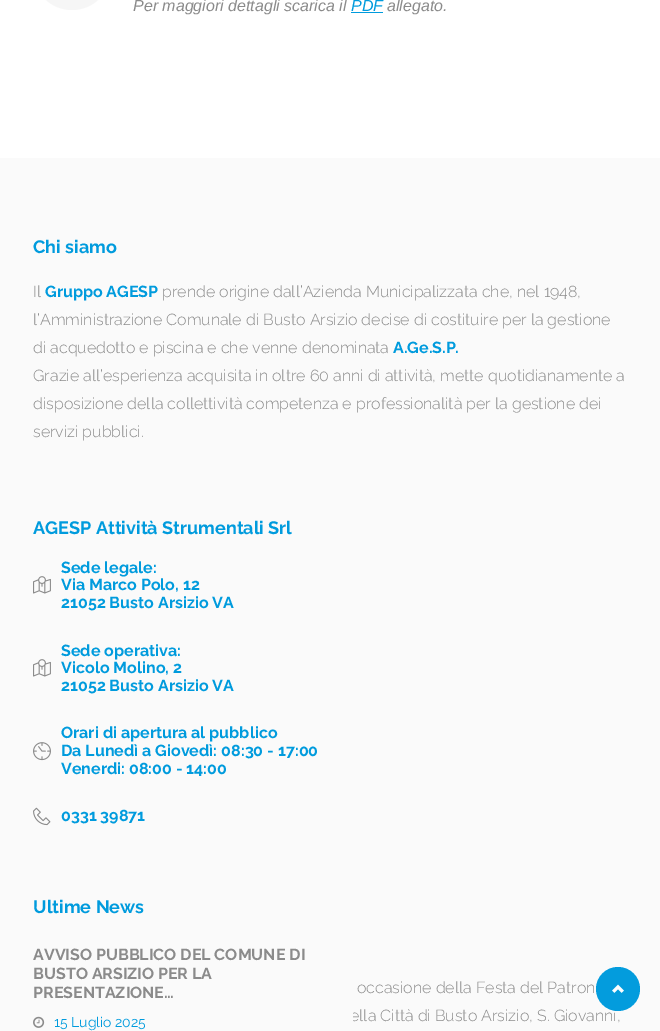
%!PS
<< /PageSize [660 1031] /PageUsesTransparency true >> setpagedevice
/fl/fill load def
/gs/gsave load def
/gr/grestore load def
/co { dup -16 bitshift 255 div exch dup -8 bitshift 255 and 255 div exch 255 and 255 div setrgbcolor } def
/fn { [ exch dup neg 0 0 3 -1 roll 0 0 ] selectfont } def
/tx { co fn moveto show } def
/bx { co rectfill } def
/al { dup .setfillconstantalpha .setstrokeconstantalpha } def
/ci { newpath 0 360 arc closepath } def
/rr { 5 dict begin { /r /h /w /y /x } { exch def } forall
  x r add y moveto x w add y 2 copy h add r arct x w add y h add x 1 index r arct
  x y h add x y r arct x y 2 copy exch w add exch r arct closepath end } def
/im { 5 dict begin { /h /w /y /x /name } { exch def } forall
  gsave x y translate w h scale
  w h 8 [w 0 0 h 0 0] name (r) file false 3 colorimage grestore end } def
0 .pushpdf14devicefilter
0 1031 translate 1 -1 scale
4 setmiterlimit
0 0 660 1031 16#FFFFFF bx
16#F6F6F6 co
33 -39 78 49 39 rr fl
351 12 32 1 16#009BDD bx
0 158 660 873 16#FAFAFA bx
(media/1.raw) 33 576 18 18 im
(media/1.raw) 33 659 18 18 im
(media/2.raw) 33 742 18 19 im
(media/3.raw) 33 807 18 19 im
(media/4.raw) 33 1016 12 12 im
(Per maggiori dettagli scarica il) 133 11 /LiberationSans-Italic 16 16#8B8B8B tx
(PDF) 351 11 /LiberationSans-Italic 16 16#009BDD tx
(allegato.) 387 11 /LiberationSans-Italic 16 16#8B8B8B tx
(Chi siamo) 33 253 /Raleway-Bold 18 16#009BDD tx
(Il) 33 297 /Raleway-Light 16 16#8B8B8B tx
(Gruppo AGESP) 45 297 /Raleway-Bold 16 16#009BDD tx
(prende origine dall’Azienda Municipalizzata che, nel 1948,) 162 297 /Raleway-Light 16 16#8B8B8B tx
(l’Amministrazione Comunale di Busto Arsizio decise di costituire per la gestione) 33 325 /Raleway-Light 16 16#8B8B8B tx
(di acquedotto e piscina e che venne denominata) 33 353 /Raleway-Light 16 16#8B8B8B tx
(A.Ge.S.P.) 393 353 /Raleway-Bold 16 16#009BDD tx
(Grazie all’esperienza acquisita in oltre 60 anni di attività, mette quotidianamente a) 33 381 /Raleway-Light 16 16#8B8B8B tx
(disposizione della collettività competenza e professionalità per la gestione dei) 33 409 /Raleway-Light 16 16#8B8B8B tx
(servizi pubblici.) 33 437 /Raleway-Light 16 16#8B8B8B tx
(AGESP Attività Strumentali Srl) 33 534 /Raleway-Bold 18 16#009BDD tx
(Sede legale:) 61 573 /Raleway-Bold 16 16#009BDD tx
(Via Marco Polo, 12) 61 590 /Raleway-Bold 16 16#009BDD tx
(21052 Busto Arsizio VA) 61 608 /Raleway-Bold 16 16#009BDD tx
(Sede operativa:) 61 656 /Raleway-Bold 16 16#009BDD tx
(Vicolo Molino, 2) 61 673 /Raleway-Bold 16 16#009BDD tx
(21052 Busto Arsizio VA) 61 691 /Raleway-Bold 16 16#009BDD tx
(Orari di apertura al pubblico) 61 738 /Raleway-Bold 16 16#009BDD tx
(Da Lunedì a Giovedì: 08:30 - 17:00) 61 756 /Raleway-Bold 16 16#009BDD tx
(Venerdi: 08:00 - 14:00) 61 774 /Raleway-Bold 16 16#009BDD tx
(0331 39871) 61 821 /Raleway-Bold 16 16#009BDD tx
(Ultime News) 33 913 /Raleway-Bold 18 16#009BDD tx
(AVVISO PUBBLICO DEL COMUNE DI) 33 960 /Raleway-Bold 16 16#8B8B8B tx
(BUSTO ARSIZIO PER LA) 33 979 /Raleway-Bold 16 16#8B8B8B tx
(PRESENTAZIONE…) 33 998 /Raleway-Bold 16 16#8B8B8B tx
(15 Luglio 2025) 54 1027 /Raleway-Regular 14 16#009BDD tx
(occasione della Festa del Patron) 357 993 /Raleway-Light 16 16#8B8B8B tx
gs
353 938 274 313 rectclip
(ella Città di Busto Arsizio, S. Giovanni,) 350 1021 /Raleway-Light 16 16#8B8B8B tx
gr
0.99 al
16#009BDD co
618 989 22 ci fl
1 al
(media/5.raw) 612 984 12 9 im
.poppdf14devicefilter showpage
